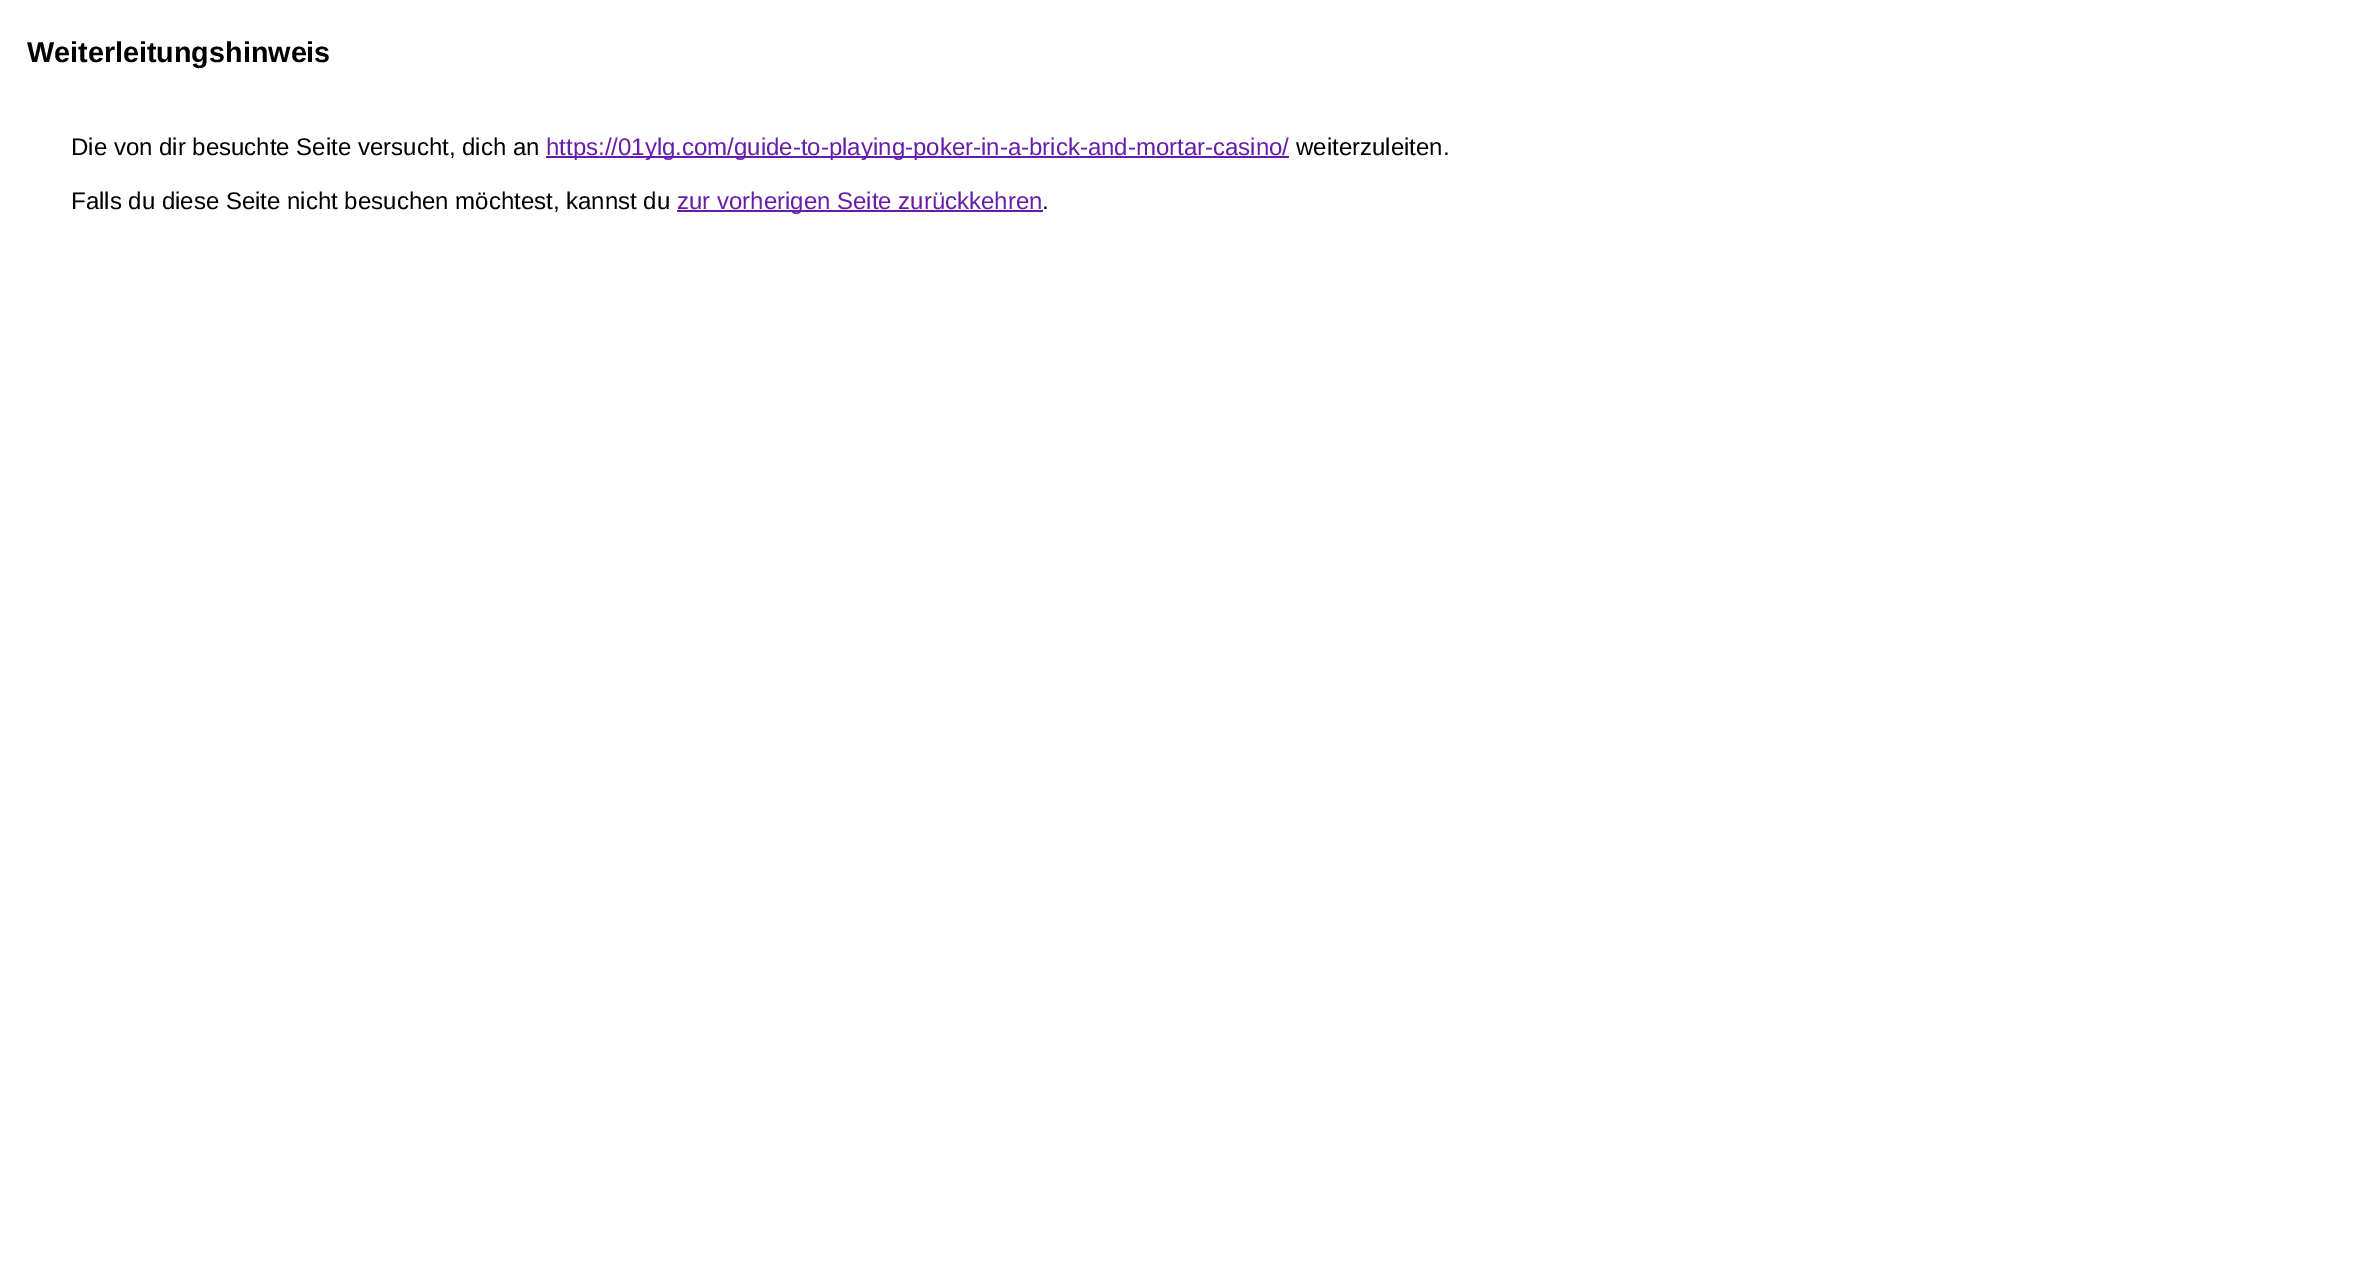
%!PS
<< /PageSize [2353 1263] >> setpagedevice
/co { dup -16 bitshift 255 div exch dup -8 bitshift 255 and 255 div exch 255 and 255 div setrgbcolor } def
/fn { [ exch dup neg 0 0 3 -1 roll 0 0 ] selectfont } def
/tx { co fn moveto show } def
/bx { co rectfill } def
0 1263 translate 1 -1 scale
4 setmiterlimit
0 0 2353 1263 16#FFFFFF bx
546 156 743 2 16#681DA8 bx
677 210 366 2 16#681DA8 bx
(Weiterleitungshinweis) 27 62 /LiberationSans-Bold 28.75 16#000000 tx
(Die von dir besuchte Seite versucht, dich an) 71 155 /LiberationSans-Regular 24 16#000000 tx
(https://01ylg.com/guide-to-playing-poker-in-a-brick-and-mortar-casino/) 546 155 /LiberationSans-Regular 24 16#681DA8 tx
(weiterzuleiten.) 1296 155 /LiberationSans-Regular 24 16#000000 tx
(Falls du diese Seite nicht besuchen möchtest, kannst du) 71 209 /LiberationSans-Regular 24 16#000000 tx
(zur vorherigen Seite zurückkehren) 677 209 /LiberationSans-Regular 24 16#681DA8 tx
(.) 1042 209 /LiberationSans-Regular 24 16#000000 tx
showpage
